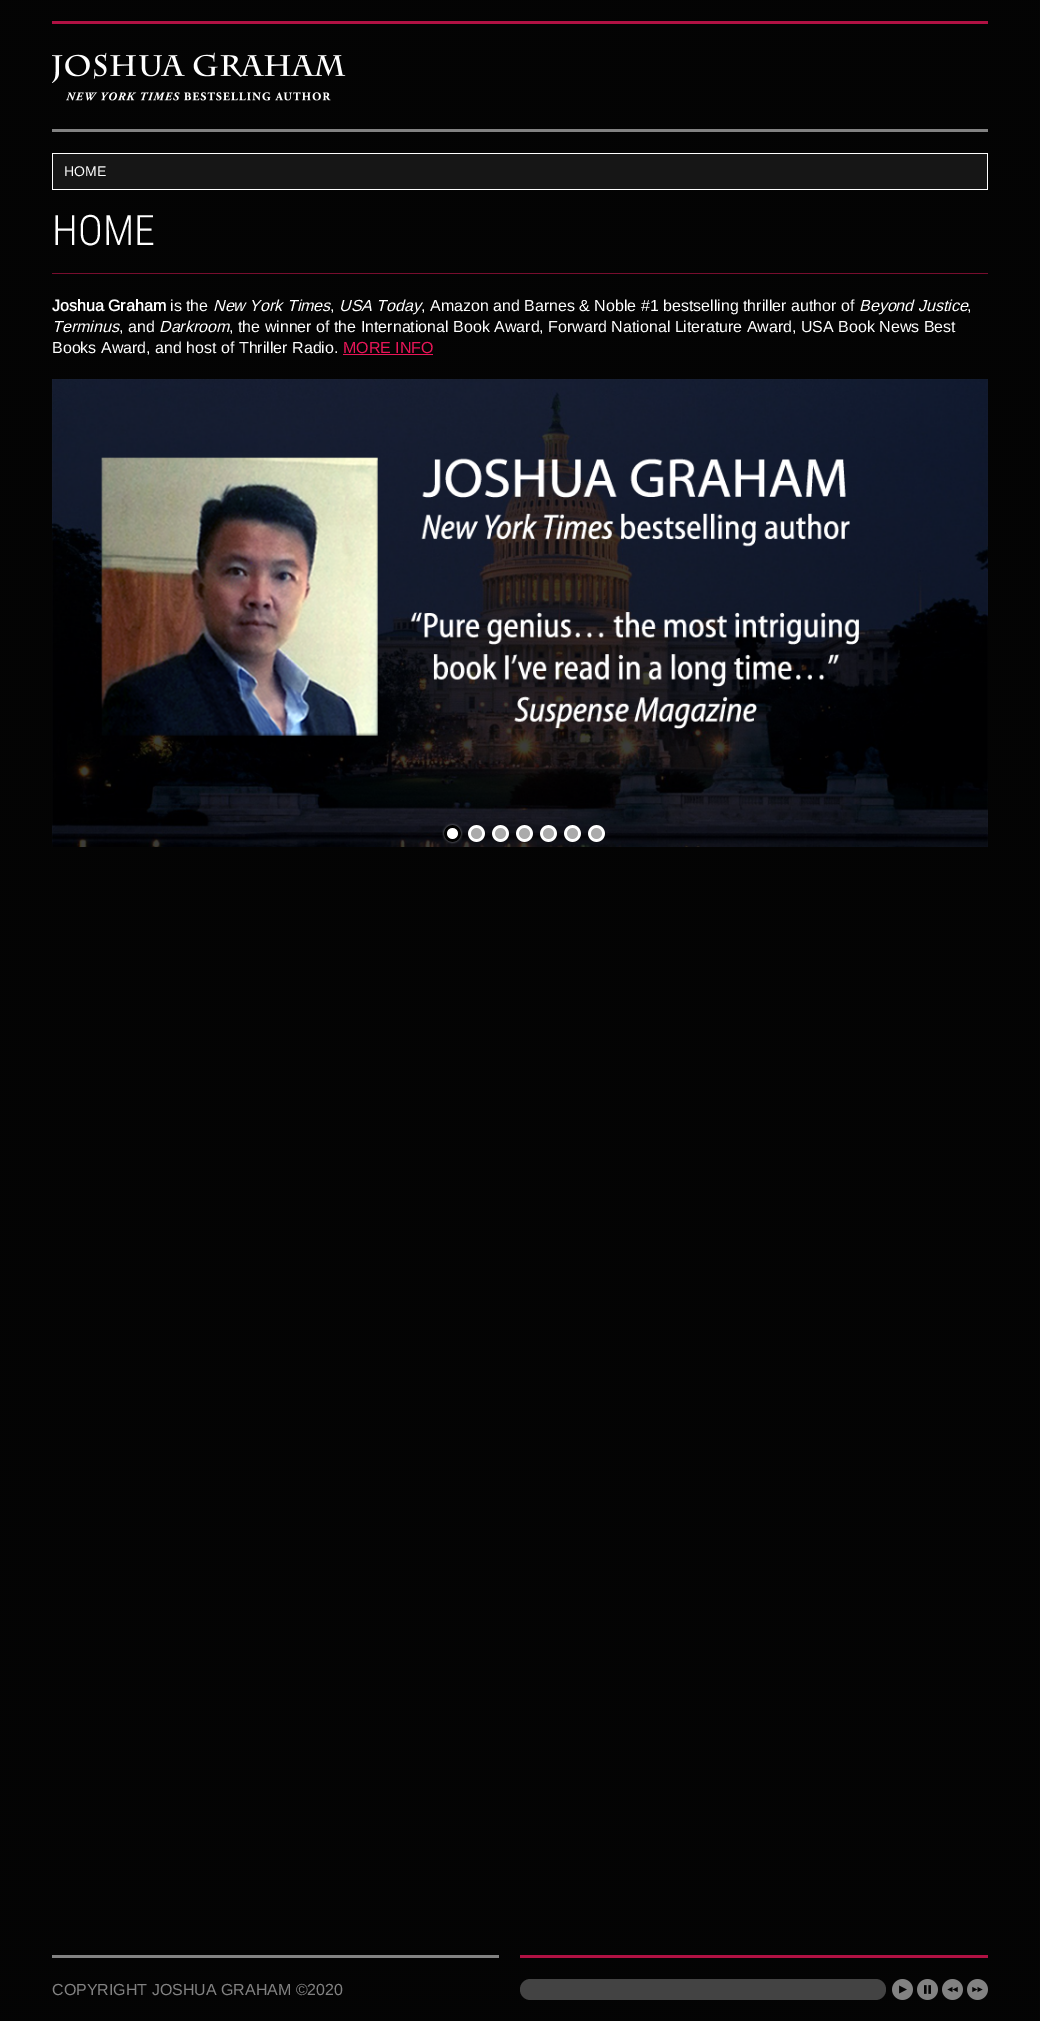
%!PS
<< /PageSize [1040 2021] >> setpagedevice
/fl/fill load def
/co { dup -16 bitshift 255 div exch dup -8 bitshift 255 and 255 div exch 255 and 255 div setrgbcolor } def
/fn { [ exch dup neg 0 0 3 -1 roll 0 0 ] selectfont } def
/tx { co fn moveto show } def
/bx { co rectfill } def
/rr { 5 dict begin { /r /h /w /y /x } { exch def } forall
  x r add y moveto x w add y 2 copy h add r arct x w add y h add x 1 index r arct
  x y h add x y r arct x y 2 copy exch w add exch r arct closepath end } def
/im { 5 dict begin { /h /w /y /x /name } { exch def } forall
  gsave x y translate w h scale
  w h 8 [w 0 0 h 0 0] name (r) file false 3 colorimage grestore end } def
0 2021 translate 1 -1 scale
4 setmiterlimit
0 0 1040 2021 16#050505 bx
(media/2.raw) 0 0 1039 2021 im
52 21 936 3 16#B01143 bx
(media/1.raw) 52 52 294 49 im
52 129 936 3 16#828282 bx
53 154 934 35 16#161616 bx
52 153 936 1 16#FFFFFF bx
987 153 1 37 16#FFFFFF bx
52 153 1 37 16#FFFFFF bx
53 189 934 1 16#FFFFFF bx
52 273 936 1 16#770D2E bx
343 354 90 1 16#E91558 bx
(media/3.raw) 52 379 936 468 im
(media/4.raw) 442 823 21 21 im
(media/5.raw) 468 824 17 18 im
(media/6.raw) 492 824 18 18 im
(media/7.raw) 516 824 17 19 im
(media/8.raw) 540 824 17 18 im
(media/9.raw) 564 824 17 18 im
(media/10.raw) 588 824 17 18 im
52 1955 447 3 16#828282 bx
520 1955 468 3 16#B01143 bx
16#434343 co
520 1979 366 21 10.5 rr fl
(media/11.raw) 892 1979 21 21 im
(media/12.raw) 917 1979 21 21 im
(media/13.raw) 942 1979 21 21 im
(media/14.raw) 967 1979 21 21 im
(HOME) 64 176 /Arimo-Regular 14 16#FFFFFF tx
(HOME) 52 245 /RobotoCondensed-Light 42 16#FFFFFF tx
(Joshua Graham) 52 311 /Arimo-Bold 16 16#FFFFFF tx
(is the) 170 311 /Arimo-Regular 16 16#FFFFFF tx
(New York Times) 213 311 /Arimo-Italic 16 16#FFFFFF tx
(,) 330 311 /Arimo-Regular 16 16#FFFFFF tx
(USA Today) 339 311 /Arimo-Italic 16 16#FFFFFF tx
(, Amazon and Barnes & Noble #1 bestselling thriller author of) 421 311 /Arimo-Regular 16 16#FFFFFF tx
(Beyond Justice) 859 311 /Arimo-Italic 16 16#FFFFFF tx
(,) 967 311 /Arimo-Regular 16 16#FFFFFF tx
(Terminus) 52 332 /Arimo-Italic 16 16#FFFFFF tx
(, and) 119 332 /Arimo-Regular 16 16#FFFFFF tx
(Darkroom) 159 332 /Arimo-Italic 16 16#FFFFFF tx
(, the winner of the International Book Award, Forward National Literature Award, USA Book News Best) 229 332 /Arimo-Regular 16 16#FFFFFF tx
(Books Award, and host of Thriller Radio.) 52 353 /Arimo-Regular 16 16#FFFFFF tx
(MORE INFO) 343 353 /Arimo-Regular 16 16#E91558 tx
(COPYRIGHT JOSHUA GRAHAM ©2020) 52 1995 /Arimo-Regular 16 16#828282 tx
showpage
